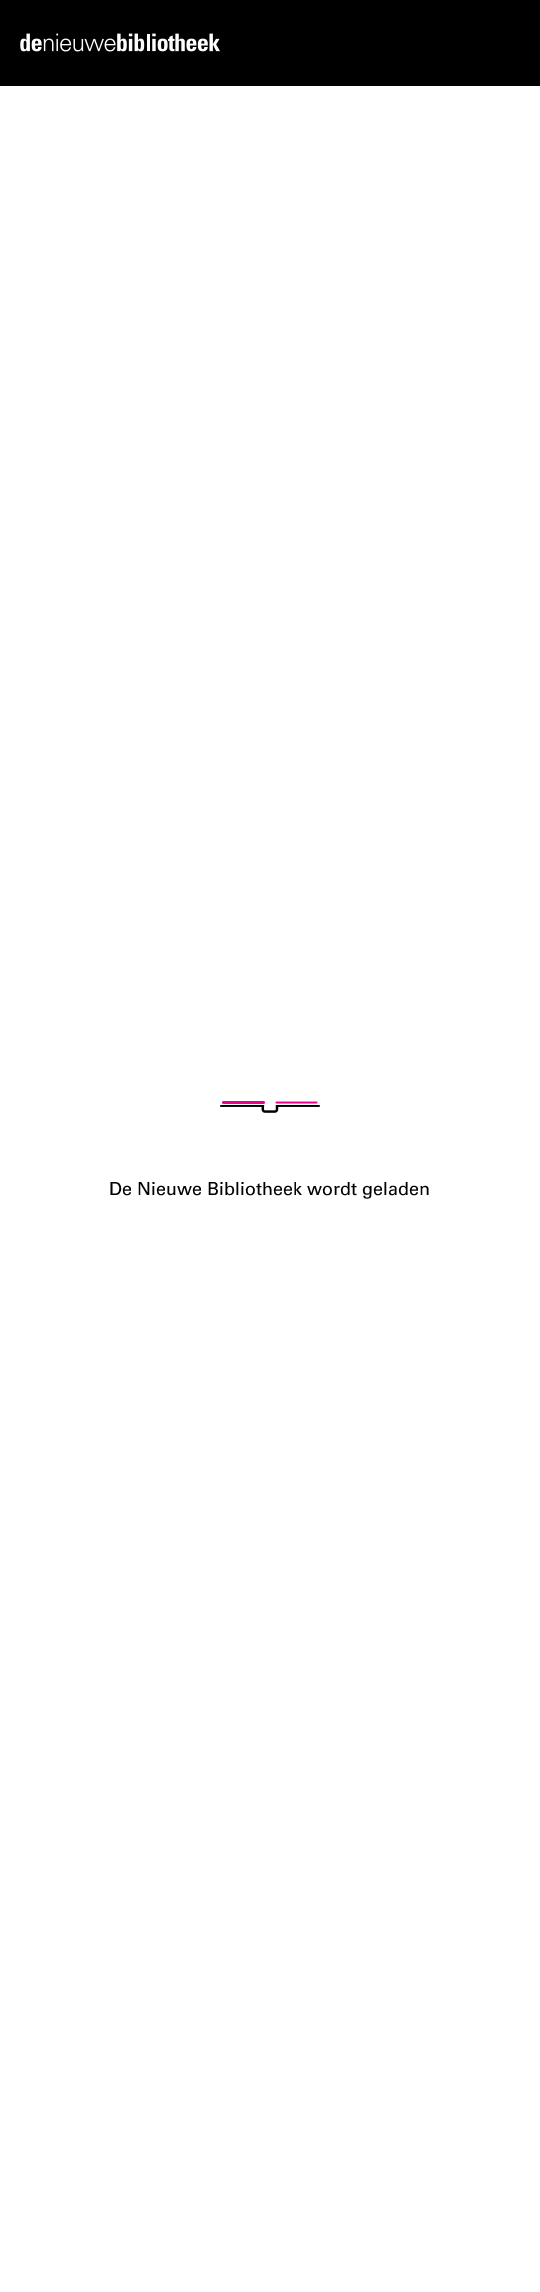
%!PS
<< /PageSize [540 2292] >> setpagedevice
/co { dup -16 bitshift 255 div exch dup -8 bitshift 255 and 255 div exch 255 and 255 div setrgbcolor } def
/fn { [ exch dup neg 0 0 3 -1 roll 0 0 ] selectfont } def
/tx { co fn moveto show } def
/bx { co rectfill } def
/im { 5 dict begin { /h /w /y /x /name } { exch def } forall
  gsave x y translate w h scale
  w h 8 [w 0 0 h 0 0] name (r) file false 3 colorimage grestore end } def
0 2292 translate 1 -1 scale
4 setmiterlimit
0 0 540 2292 16#FFFFFF bx
0 0 540 86 16#000000 bx
(media/1.raw) 20 33 200 19 im
(media/2.raw) 220 1101 100 12 im
(De Nieuwe Bibliotheek wordt geladen) 109 1195 /Univers-Regular 18 16#000000 tx
showpage
